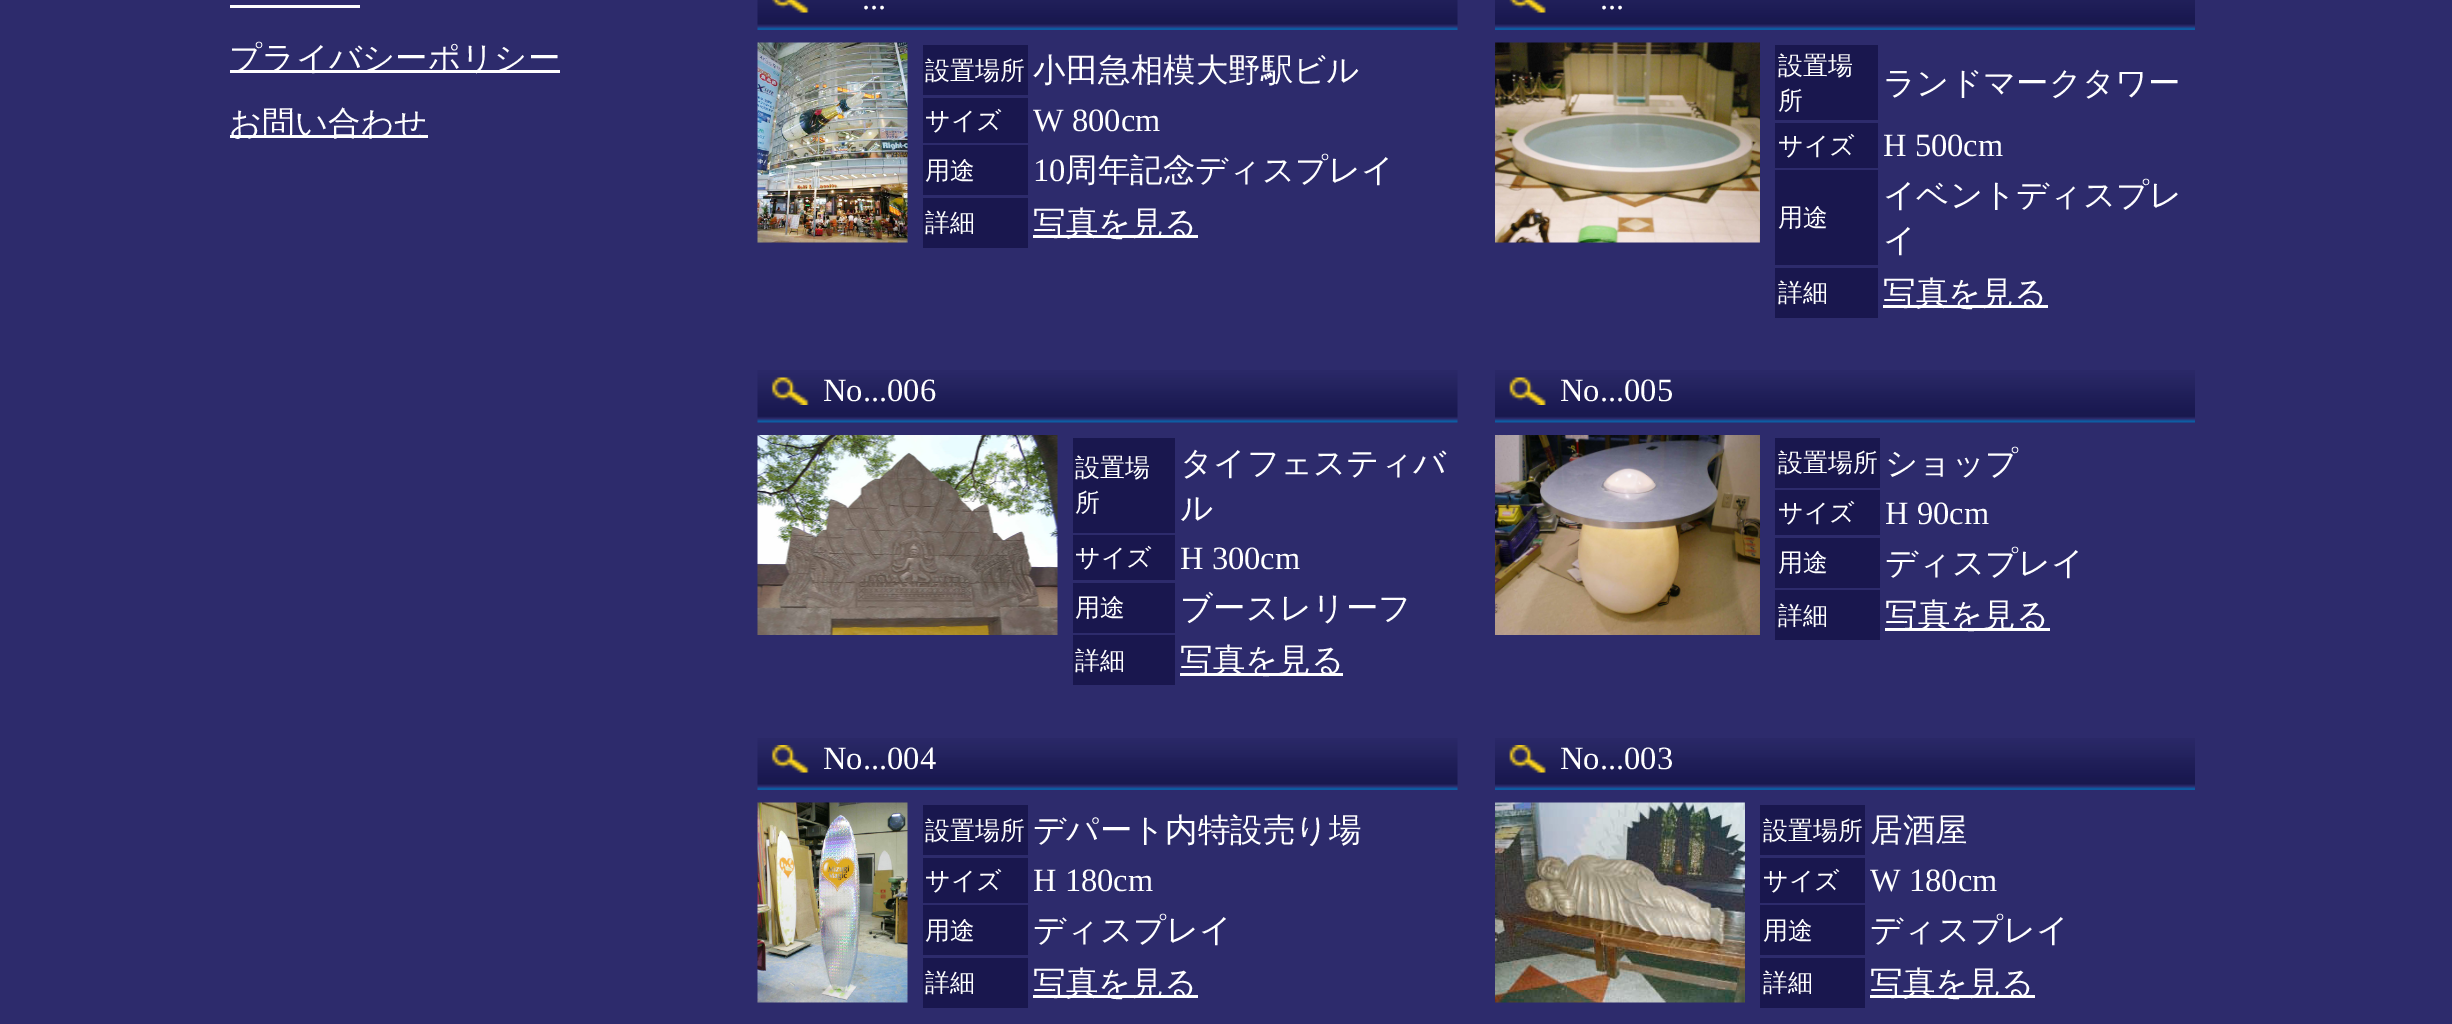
%!PS
<< /PageSize [2452 1024] >> setpagedevice
/co { dup -16 bitshift 255 div exch dup -8 bitshift 255 and 255 div exch 255 and 255 div setrgbcolor } def
/fn { [ exch dup neg 0 0 3 -1 roll 0 0 ] selectfont } def
/tx { co fn moveto show } def
/bx { co rectfill } def
/im { 5 dict begin { /h /w /y /x /name } { exch def } forall
  gsave x y translate w h scale
  w h 8 [w 0 0 h 0 0] name (r) file false 3 colorimage grestore end } def
0 1024 translate 1 -1 scale
4 setmiterlimit
0 0 2452 1024 16#2D2B6C bx
230 5 130 3 16#FFFFFF bx
230 70 330 3 16#FFFFFF bx
230 135 198 3 16#FFFFFF bx
(media/1.raw) 757 0 701 30 im
(media/2.raw) 771 0 38 13 im
(media/3.raw) 757 42 151 201 im
923 45 105 50 16#19174E bx
923 98 105 45 16#19174E bx
923 145 105 50 16#19174E bx
923 198 105 50 16#19174E bx
1033 235 165 3 16#FFFFFF bx
(media/4.raw) 1495 0 700 30 im
(media/5.raw) 1509 0 37 13 im
(media/6.raw) 1495 42 265 201 im
1775 45 103 75 16#19174E bx
1775 123 103 45 16#19174E bx
1775 170 103 95 16#19174E bx
1775 268 103 50 16#19174E bx
1883 305 165 3 16#FFFFFF bx
(media/7.raw) 757 370 701 53 im
(media/8.raw) 771 377 38 28 im
(media/9.raw) 757 435 301 200 im
1073 438 102 95 16#19174E bx
1073 535 102 45 16#19174E bx
1073 583 102 50 16#19174E bx
1073 635 102 50 16#19174E bx
1180 673 163 3 16#FFFFFF bx
(media/10.raw) 1495 370 700 53 im
(media/11.raw) 1509 377 37 28 im
(media/12.raw) 1495 435 265 200 im
1775 438 105 50 16#19174E bx
1775 490 105 45 16#19174E bx
1775 538 105 50 16#19174E bx
1775 590 105 50 16#19174E bx
1885 628 165 3 16#FFFFFF bx
(media/13.raw) 757 738 701 52 im
(media/14.raw) 771 745 38 28 im
(media/15.raw) 757 802 151 201 im
923 805 105 50 16#19174E bx
923 858 105 45 16#19174E bx
923 905 105 50 16#19174E bx
923 958 105 50 16#19174E bx
1033 995 165 3 16#FFFFFF bx
(media/16.raw) 1495 738 700 52 im
(media/17.raw) 1509 745 37 28 im
(media/18.raw) 1495 802 250 201 im
1760 805 105 50 16#19174E bx
1760 858 105 45 16#19174E bx
1760 905 105 50 16#19174E bx
1760 958 105 50 16#19174E bx
1870 995 165 3 16#FFFFFF bx
(プライバシーポリシー) 229 69 /WenQuanYiZenHei-Medium 32.5 16#FFFFFF tx
(お問い合わせ) 229 134 /WenQuanYiZenHei-Medium 32.5 16#FFFFFF tx
(...) 862 9 /LiberationSerif-Regular 32.5 16#FFFFFF tx
(設置場所) 925 79 /WenQuanYiZenHei-Medium 25 16#FFFFFF tx
(小田急相模大野駅ビル) 1033 81 /WenQuanYiZenHei-Medium 32.5 16#FFFFFF tx
(サイズ) 925 129 /WenQuanYiZenHei-Medium 25 16#FFFFFF tx
(W 800cm) 1033 131 /LiberationSerif-Regular 32.5 16#FFFFFF tx
(用途) 925 179 /WenQuanYiZenHei-Medium 25 16#FFFFFF tx
(10) 1033 181 /LiberationSerif-Regular 32.5 16#FFFFFF tx
(周年記念ディスプレイ) 1065 181 /WenQuanYiZenHei-Medium 32.5 16#FFFFFF tx
(詳細) 925 231 /WenQuanYiZenHei-Medium 25 16#FFFFFF tx
(写真を見る) 1033 234 /WenQuanYiZenHei-Medium 32.5 16#FFFFFF tx
(...) 1600 9 /LiberationSerif-Regular 32.5 16#FFFFFF tx
(設置場) 1778 74 /WenQuanYiZenHei-Medium 25 16#FFFFFF tx
(所) 1778 109 /WenQuanYiZenHei-Medium 25 16#FFFFFF tx
(ランドマークタワー) 1883 94 /WenQuanYiZenHei-Medium 32.5 16#FFFFFF tx
(サイズ) 1778 154 /WenQuanYiZenHei-Medium 25 16#FFFFFF tx
(H 500cm) 1883 156 /LiberationSerif-Regular 32.5 16#FFFFFF tx
(用途) 1778 226 /WenQuanYiZenHei-Medium 25 16#FFFFFF tx
(イベントディスプレ) 1883 206 /WenQuanYiZenHei-Medium 32.5 16#FFFFFF tx
(イ) 1883 251 /WenQuanYiZenHei-Medium 32.5 16#FFFFFF tx
(詳細) 1778 301 /WenQuanYiZenHei-Medium 25 16#FFFFFF tx
(写真を見る) 1883 304 /WenQuanYiZenHei-Medium 32.5 16#FFFFFF tx
(No...006) 823 401 /LiberationSerif-Regular 32.5 16#FFFFFF tx
(設置場) 1075 476 /WenQuanYiZenHei-Medium 25 16#FFFFFF tx
(所) 1075 511 /WenQuanYiZenHei-Medium 25 16#FFFFFF tx
(タイフェスティバ) 1180 474 /WenQuanYiZenHei-Medium 32.5 16#FFFFFF tx
(ル) 1180 519 /WenQuanYiZenHei-Medium 32.5 16#FFFFFF tx
(サイズ) 1075 566 /WenQuanYiZenHei-Medium 25 16#FFFFFF tx
(H 300cm) 1180 569 /LiberationSerif-Regular 32.5 16#FFFFFF tx
(用途) 1075 616 /WenQuanYiZenHei-Medium 25 16#FFFFFF tx
(ブースレリーフ) 1180 619 /WenQuanYiZenHei-Medium 32.5 16#FFFFFF tx
(詳細) 1075 669 /WenQuanYiZenHei-Medium 25 16#FFFFFF tx
(写真を見る) 1180 671 /WenQuanYiZenHei-Medium 32.5 16#FFFFFF tx
(No...005) 1560 401 /LiberationSerif-Regular 32.5 16#FFFFFF tx
(設置場所) 1778 471 /WenQuanYiZenHei-Medium 25 16#FFFFFF tx
(ショップ) 1885 474 /WenQuanYiZenHei-Medium 32.5 16#FFFFFF tx
(サイズ) 1778 521 /WenQuanYiZenHei-Medium 25 16#FFFFFF tx
(H 90cm) 1885 524 /LiberationSerif-Regular 32.5 16#FFFFFF tx
(用途) 1778 571 /WenQuanYiZenHei-Medium 25 16#FFFFFF tx
(ディスプレイ) 1885 574 /WenQuanYiZenHei-Medium 32.5 16#FFFFFF tx
(詳細) 1778 624 /WenQuanYiZenHei-Medium 25 16#FFFFFF tx
(写真を見る) 1885 626 /WenQuanYiZenHei-Medium 32.5 16#FFFFFF tx
(No...004) 823 769 /LiberationSerif-Regular 32.5 16#FFFFFF tx
(設置場所) 925 839 /WenQuanYiZenHei-Medium 25 16#FFFFFF tx
(デパート内特設売り場) 1033 841 /WenQuanYiZenHei-Medium 32.5 16#FFFFFF tx
(サイズ) 925 889 /WenQuanYiZenHei-Medium 25 16#FFFFFF tx
(H 180cm) 1033 891 /LiberationSerif-Regular 32.5 16#FFFFFF tx
(用途) 925 939 /WenQuanYiZenHei-Medium 25 16#FFFFFF tx
(ディスプレイ) 1033 941 /WenQuanYiZenHei-Medium 32.5 16#FFFFFF tx
(詳細) 925 991 /WenQuanYiZenHei-Medium 25 16#FFFFFF tx
(写真を見る) 1033 994 /WenQuanYiZenHei-Medium 32.5 16#FFFFFF tx
(No...003) 1560 769 /LiberationSerif-Regular 32.5 16#FFFFFF tx
(設置場所) 1763 839 /WenQuanYiZenHei-Medium 25 16#FFFFFF tx
(居酒屋) 1870 841 /WenQuanYiZenHei-Medium 32.5 16#FFFFFF tx
(サイズ) 1763 889 /WenQuanYiZenHei-Medium 25 16#FFFFFF tx
(W 180cm) 1870 891 /LiberationSerif-Regular 32.5 16#FFFFFF tx
(用途) 1763 939 /WenQuanYiZenHei-Medium 25 16#FFFFFF tx
(ディスプレイ) 1870 941 /WenQuanYiZenHei-Medium 32.5 16#FFFFFF tx
(詳細) 1763 991 /WenQuanYiZenHei-Medium 25 16#FFFFFF tx
(写真を見る) 1870 994 /WenQuanYiZenHei-Medium 32.5 16#FFFFFF tx
showpage
